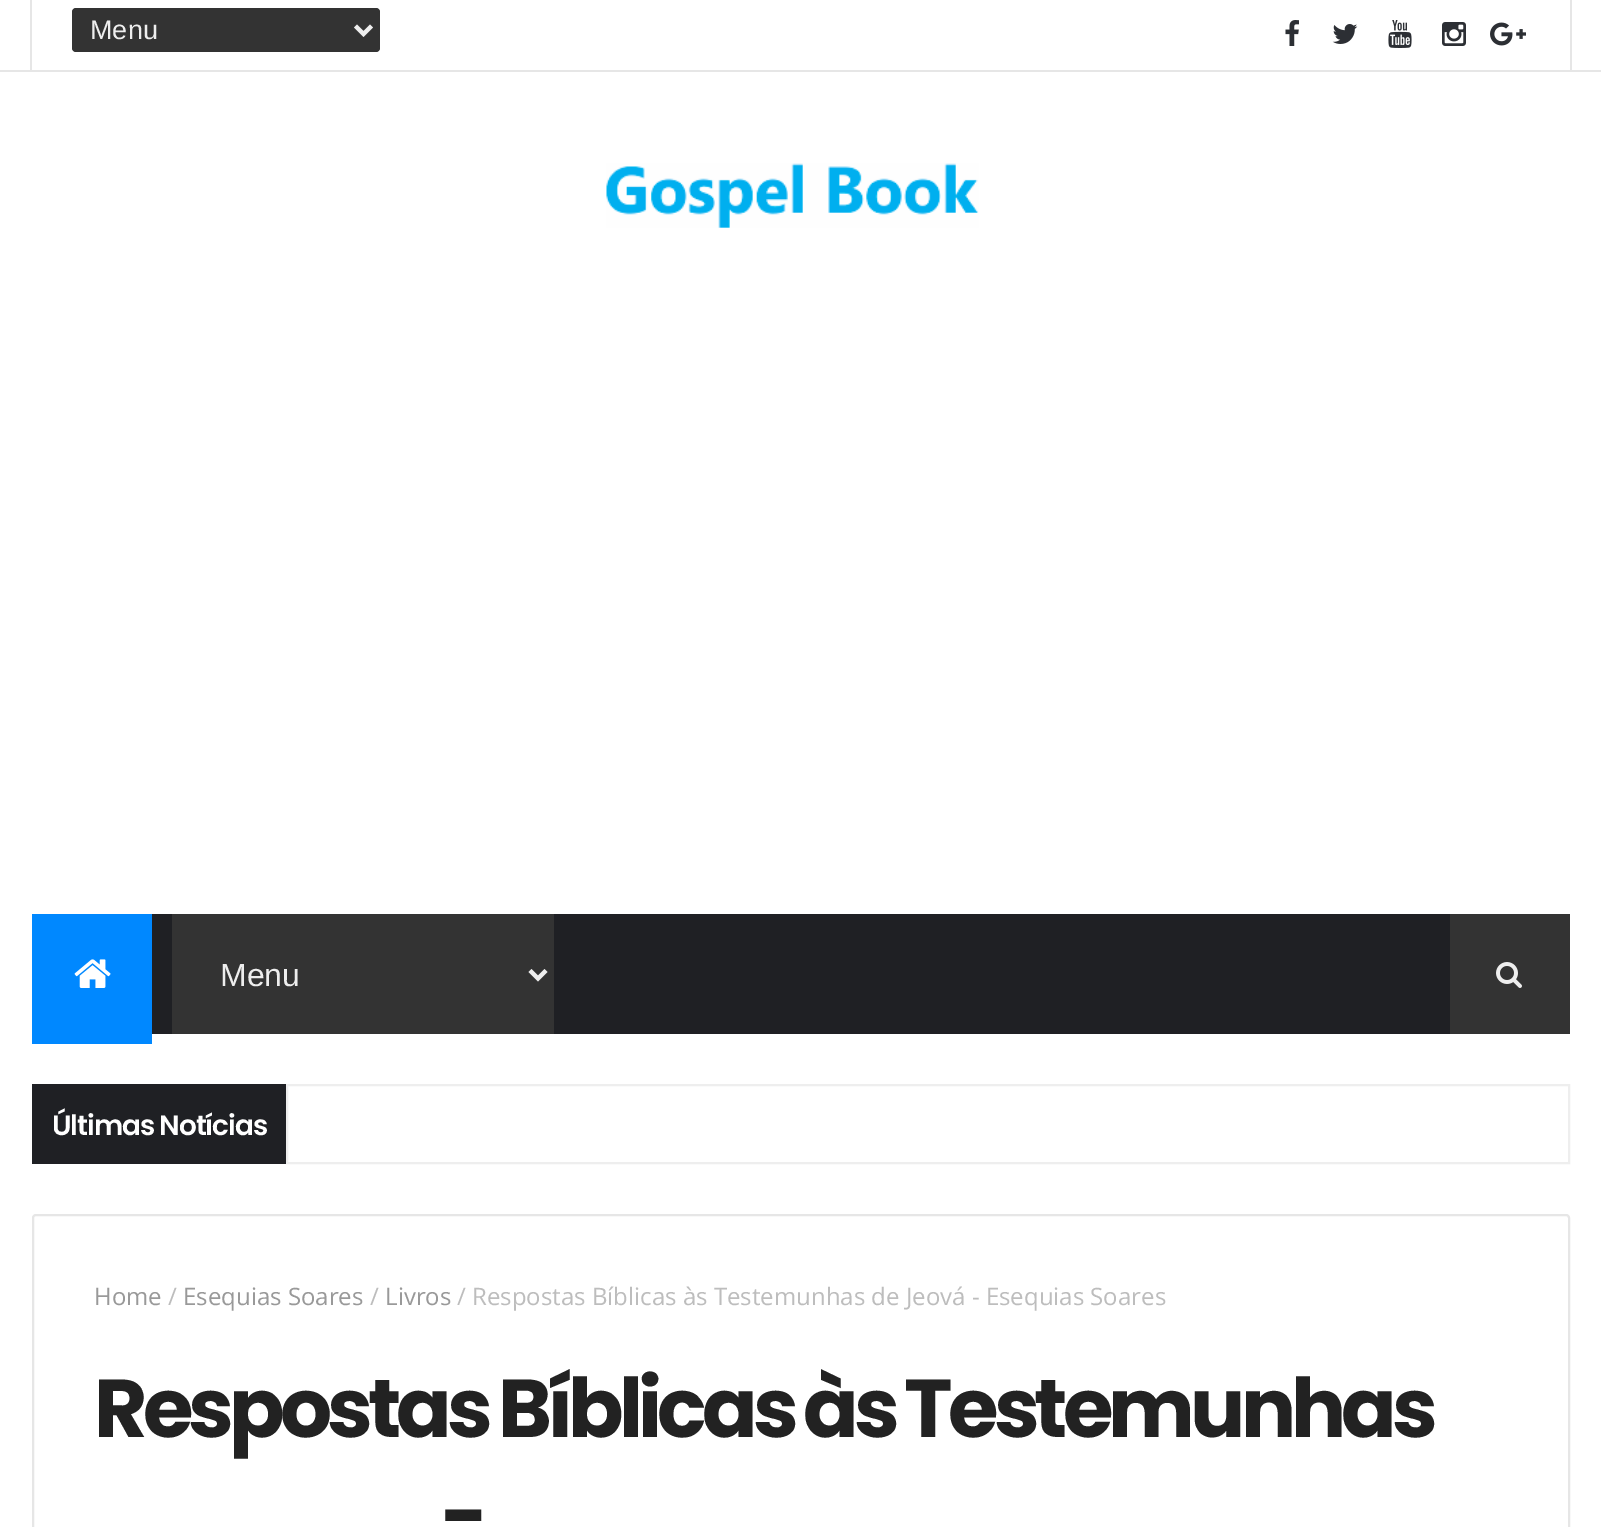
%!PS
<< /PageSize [1601 1527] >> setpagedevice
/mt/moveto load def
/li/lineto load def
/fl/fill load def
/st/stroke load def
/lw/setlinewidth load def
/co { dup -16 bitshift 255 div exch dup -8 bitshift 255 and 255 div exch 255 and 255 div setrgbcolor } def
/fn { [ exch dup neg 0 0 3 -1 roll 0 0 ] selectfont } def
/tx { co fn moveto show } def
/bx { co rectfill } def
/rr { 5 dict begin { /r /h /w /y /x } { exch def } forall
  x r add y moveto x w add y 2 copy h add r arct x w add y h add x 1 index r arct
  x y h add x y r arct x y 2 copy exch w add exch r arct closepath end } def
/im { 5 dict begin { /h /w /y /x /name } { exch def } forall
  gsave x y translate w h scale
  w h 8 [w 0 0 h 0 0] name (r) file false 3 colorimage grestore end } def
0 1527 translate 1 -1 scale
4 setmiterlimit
0 0 1601 1527 16#FFFFFF bx
0 70 1601 2 16#E6E6E6 bx
1570 0 2 70 16#E6E6E6 bx
30 0 2 70 16#E6E6E6 bx
16#333333 co
72 8 308 44 4 rr fl
16#EEEEEE co
4 lw
355.5 26 mt 363.5 34 li 371.5 26 li st
(media/1.raw) 1285 20 14 26 im
(media/2.raw) 1332 24 26 20 im
(media/3.raw) 1388 20 24 28 im
(media/4.raw) 1442 22 24 24 im
(media/5.raw) 1490 22 36 24 im
(media/6.raw) 606 163 373 65 im
152 914 1298 120 16#1F2024 bx
32 914 120 130 16#0088FF bx
(media/7.raw) 74 959 37 29 im
172 914 382 120 16#333333 bx
16#EEEEEE co
530 970.5 mt 538 978.5 li 546 970.5 li st
1450 914 120 120 16#333333 bx
(media/8.raw) 1496 962 26 26 im
32 1084 254 80 16#1F2024 bx
16#EEEEEE co
2 lw
287 1085 1282 78 rectstroke
16#E6E6E6 co
33 1215 1536 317 3 rr st
(Menu) 90 39 /LiberationSans-Regular 27 16#EEEEEE tx
(Menu) 220 986 /LiberationSans-Regular 32 16#EEEEEE tx
/Poppins-SemiBold 28 fn
16#FFFFFF co
52 1135 mt -1.1 0 (Últimas Notícias) ashow
(Home) 94 1305 /OpenSans-Regular 24 16#999999 tx
(/) 168 1305 /OpenSans-Regular 24 16#BDBDBD tx
(Esequias Soares) 183 1305 /OpenSans-Regular 24 16#999999 tx
(/) 370 1305 /OpenSans-Regular 24 16#BDBDBD tx
(Livros) 385 1305 /OpenSans-Regular 24 16#999999 tx
(/ Respostas Bíblicas às Testemunhas de Jeová - Esequias Soares) 457 1305 /OpenSans-Regular 24 16#BDBDBD tx
/Poppins-Bold 82 fn
16#222222 co
94 1437 mt -3 0 32 -4.9 0 (Respostas Bíblicas às Testemunhas) awidthshow
441 1544 mt -3 0 32 -4.9 0 (-) awidthshow
showpage
